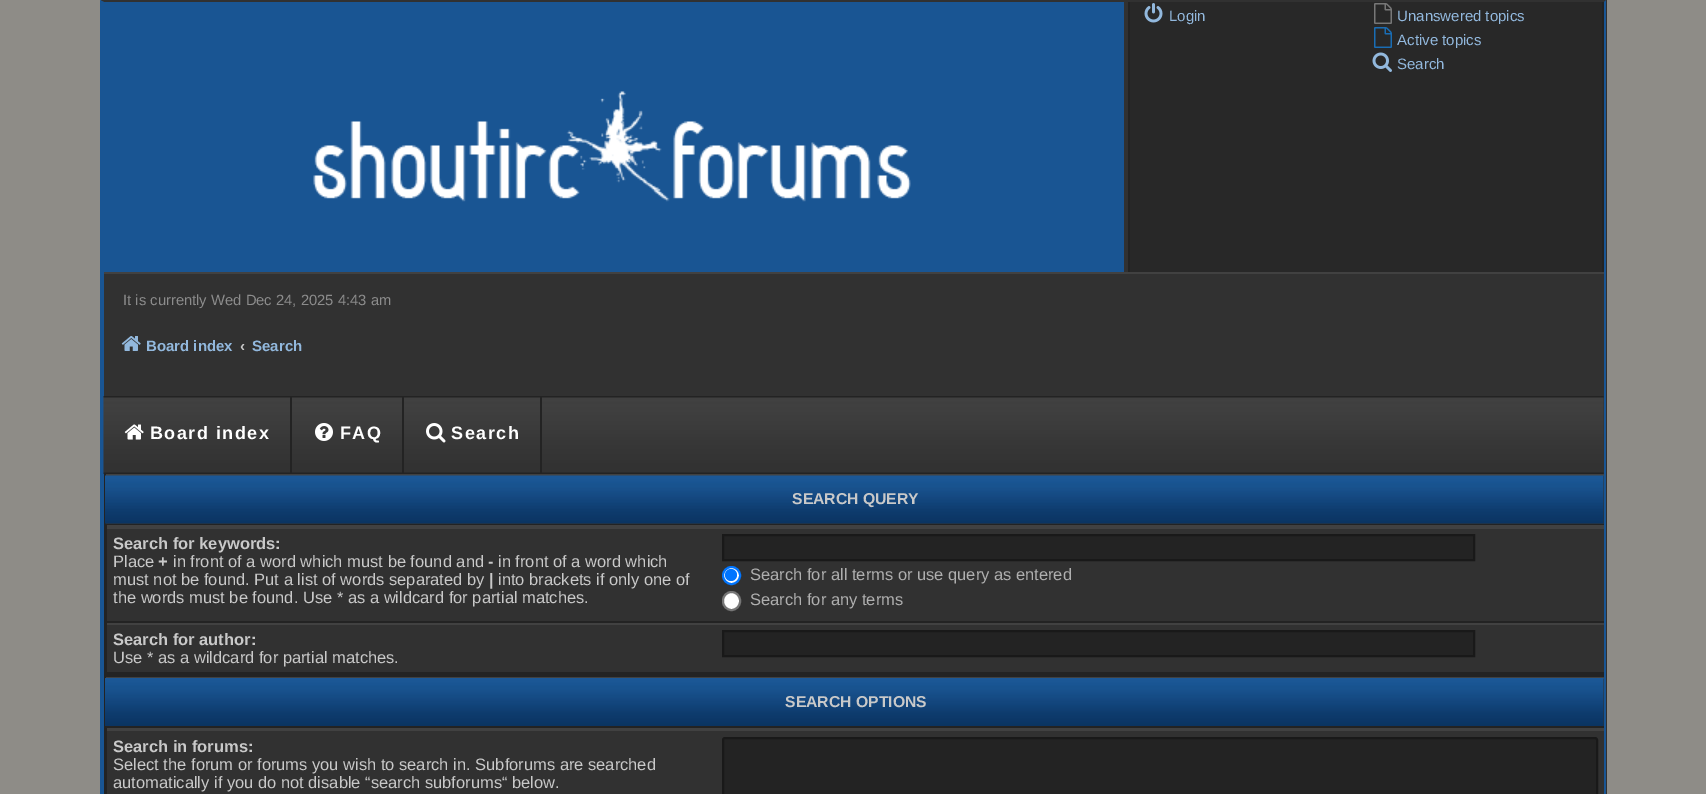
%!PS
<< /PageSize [1706 794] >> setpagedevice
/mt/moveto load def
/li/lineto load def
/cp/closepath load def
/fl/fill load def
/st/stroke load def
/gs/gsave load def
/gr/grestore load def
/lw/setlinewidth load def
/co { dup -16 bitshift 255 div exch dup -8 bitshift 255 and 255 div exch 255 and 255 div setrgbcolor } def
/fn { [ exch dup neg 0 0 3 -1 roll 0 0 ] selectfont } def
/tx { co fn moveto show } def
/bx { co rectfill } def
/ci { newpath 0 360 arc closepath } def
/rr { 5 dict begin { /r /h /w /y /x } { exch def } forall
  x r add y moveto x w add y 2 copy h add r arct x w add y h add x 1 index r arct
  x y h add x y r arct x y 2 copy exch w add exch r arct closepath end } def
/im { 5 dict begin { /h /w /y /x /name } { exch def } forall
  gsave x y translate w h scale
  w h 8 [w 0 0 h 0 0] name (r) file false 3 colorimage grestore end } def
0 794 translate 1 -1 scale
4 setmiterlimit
0 0 1706 794 16#8E8C87 bx
101 0 1506 794 16#313131 bx
16#195593 co
1606 0 mt 1606 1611 li 1604 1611 li 1604 2 li cp fl
100 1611 mt 100 0 li 104 2 li 104 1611 li cp fl
104 272 1500 2 16#414141 bx
104 2 1020 270 16#195593 bx
(media/1.raw) 313 91 598 111 im
1130 2 472 270 16#282828 bx
1602 2 2 270 16#232323 bx
1128 2 2 270 16#232323 bx
(media/2.raw) 1144 3 19 20 im
(media/3.raw) 1374 3 18 21 im
(media/4.raw) 1374 27 18 21 im
(media/5.raw) 1372 52 20 20 im
(media/6.raw) 121 336 20 15 im
(media/7.raw) 103 396 1501 78 im
290 396 2 78 16#232323 bx
(media/8.raw) 124 424 20 16 im
402 396 2 78 16#232323 bx
(media/9.raw) 315 423 18 18 im
540 396 2 78 16#232323 bx
(media/10.raw) 426 423 20 20 im
104 474 1500 2 16#414141 bx
104 676 1500 1 16#232323 bx
104 474 2 203 16#232323 bx
(media/11.raw) 105 475 1499 49 im
105 524 1499 1 16#232323 bx
105 525 1499 2 16#414141 bx
105 674 1499 2 16#232323 bx
105 525 2 150 16#232323 bx
105 527 1499 2 16#414141 bx
105 621 1499 2 16#232323 bx
105 527 2 2 16#232323 bx
723 535 mt 1474 535 li 1474 560 li 723 560 li cp gs fl gr
16#191919 co
2 lw
st
16#FFFFFF co
731.5 575.5 8.5 ci gs fl gr
16#0075FF co
st
731 575 6 ci fl
16#FFFFFF co
723 592 17 18 8.5 rr gs fl gr
16#767676 co
st
105 623 1499 2 16#414141 bx
105 672 1499 2 16#232323 bx
105 623 2 2 16#232323 bx
723 631 mt 1474 631 li 1474 656 li 723 656 li cp gs fl gr
16#191919 co
st
104 677 1500 2 16#414141 bx
104 677 2 117 16#232323 bx
(media/12.raw) 105 678 1499 48 im
105 726 1499 2 16#232323 bx
105 728 1499 3 16#414141 bx
105 728 2 66 16#232323 bx
723 738 874 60 2 rr gs fl gr
16#191919 co
st
(Login) 1169 21 /LiberationSans-Regular 15 16#92B8DD tx
(Unanswered topics) 1397 21 /LiberationSans-Regular 15 16#92B8DD tx
(Active topics) 1397 45 /LiberationSans-Regular 15 16#92B8DD tx
(Search) 1397 69 /LiberationSans-Regular 15 16#92B8DD tx
(It is currently Wed Dec 24, 2025 4:43 am) 123 305 /LiberationSans-Regular 14.8 16#8C8C8C tx
(Board index) 146 351 /LiberationSans-Bold 15 16#92B8DD tx
(‹) 240 351 /LiberationSans-Bold 15 16#C9C9C9 tx
(Search) 252 351 /LiberationSans-Bold 15 16#92B8DD tx
/LiberationSans-Bold 18 fn
16#FFFFFF co
150 439 mt 1.5 0 (Board index) ashow
340 439 mt 1.5 0 (FAQ) ashow
451 439 mt 1.5 0 (Search) ashow
(SEARCH QUERY) 792 504 /LiberationSans-Bold 15.75 16#C9C9C9 tx
(Search for keywords:) 113 549 /LiberationSans-Bold 16.5 16#C9C9C9 tx
(Place) 113 567 /LiberationSans-Regular 16.5 16#C9C9C9 tx
(+) 158 567 /LiberationSans-Bold 16.5 16#C9C9C9 tx
(in front of a word which must be found and) 173 567 /LiberationSans-Regular 16.5 16#C9C9C9 tx
(-) 488 567 /LiberationSans-Bold 16.5 16#C9C9C9 tx
(in front of a word which) 498 567 /LiberationSans-Regular 16.5 16#C9C9C9 tx
(must not be found. Put a list of words separated by) 113 585 /LiberationSans-Regular 16.5 16#C9C9C9 tx
(|) 489 585 /LiberationSans-Bold 16.5 16#C9C9C9 tx
(into brackets if only one of) 498 585 /LiberationSans-Regular 16.5 16#C9C9C9 tx
(the words must be found. Use * as a wildcard for partial matches.) 113 603 /LiberationSans-Regular 16.5 16#C9C9C9 tx
(Search for all terms or use query as entered) 750 580 /LiberationSans-Regular 16.5 16#AFAFAF tx
(Search for any terms) 750 605 /LiberationSans-Regular 16.5 16#AFAFAF tx
(Search for author:) 113 645 /LiberationSans-Bold 16.5 16#C9C9C9 tx
(Use * as a wildcard for partial matches.) 113 663 /LiberationSans-Regular 16.5 16#C9C9C9 tx
(SEARCH OPTIONS) 785 707 /LiberationSans-Bold 15.75 16#C9C9C9 tx
(Search in forums:) 113 752 /LiberationSans-Bold 16.5 16#C9C9C9 tx
(Select the forum or forums you wish to search in. Subforums are searched) 113 770 /LiberationSans-Regular 16.5 16#C9C9C9 tx
(automatically if you do not disable “search subforums“ below.) 113 788 /LiberationSans-Regular 16.5 16#C9C9C9 tx
showpage
